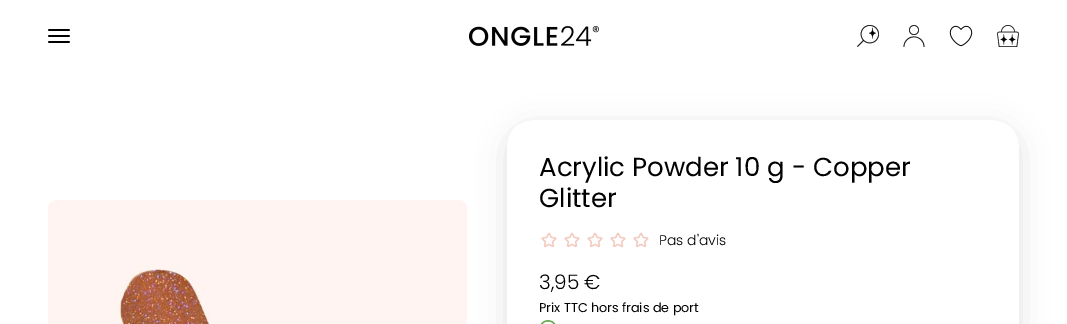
%!PS
<< /PageSize [1067 324] /PageUsesTransparency true >> setpagedevice
/mt/moveto load def
/li/lineto load def
/ct/curveto load def
/cp/closepath load def
/gs/gsave load def
/gr/grestore load def
/co { dup -16 bitshift 255 div exch dup -8 bitshift 255 and 255 div exch 255 and 255 div setrgbcolor } def
/fn { [ exch dup neg 0 0 3 -1 roll 0 0 ] selectfont } def
/tx { co fn moveto show } def
/bx { co rectfill } def
/al { dup .setfillconstantalpha .setstrokeconstantalpha } def
/rr { 5 dict begin { /r /h /w /y /x } { exch def } forall
  x r add y moveto x w add y 2 copy h add r arct x w add y h add x 1 index r arct
  x y h add x y r arct x y 2 copy exch w add exch r arct closepath end } def
/sh { 12 dict begin { /a /b /q /h /w /y /x } { exch def } forall gsave /was 0 def
  9 -2 -9 { dup b mul 4 div /e exch def 1 sub .425 mul 2.718 exch exp 1 add a .99 .min exch div /now exch def
    1 1 now sub 1 was sub div sub al /was now def
    w h .min e 2 mul add 0 gt { x e sub y e sub w e 2 mul add h e 2 mul add
      q e add b .6 mul add w h .min 2 div e add .min 0 .max rr fill } if } for grestore end } def
/im { 5 dict begin { /h /w /y /x /name } { exch def } forall
  gsave x y translate w h scale
  w h 8 [w 0 0 h 0 0] name (r) file false 3 colorimage grestore end } def
0 .pushpdf14devicefilter
0 324 translate 1 -1 scale
4 setmiterlimit
0 0 1067 324 16#FFFFFF bx
(media/1.raw) 48 29 22 14 im
(media/2.raw) 469 26 130 20 im
(media/3.raw) 857 25 22 22 im
(media/4.raw) 903 25 22 22 im
(media/5.raw) 949 25 24 22 im
(media/6.raw) 997 25 22 22 im
(media/7.raw) 48 200 419 124 im
gs
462 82 mt 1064 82 li 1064 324 li 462 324 li cp 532 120 mt 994 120 li 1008 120 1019 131 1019 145 ct 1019 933 li 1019 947 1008 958 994 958 ct 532 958 li 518 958 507 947 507 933 ct 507 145 li 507 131 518 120 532 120 ct cp eoclip newpath
16#64646F co
507 127 512 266 25 14.5 .2 sh
gr
(media/8.raw) 541 232 16 16 im
(media/8.raw) 564 232 16 16 im
(media/8.raw) 587 232 16 16 im
(media/8.raw) 610 232 16 16 im
(media/8.raw) 633 232 16 16 im
(media/9.raw) 540 320 16 4 im
(Acrylic Powder 10 g - Copper) 539 176 /Poppins-Regular 26 16#000000 tx
(Glitter) 539 207 /Poppins-Regular 26 16#000000 tx
(Pas d'avis) 659 245 /Poppins-Light 14 16#000000 tx
(3,95 €) 539 289 /Poppins-Light 20 16#000000 tx
(Prix TTC hors frais de port) 539 312 /Poppins-Regular 12.75 16#000000 tx
.poppdf14devicefilter showpage
